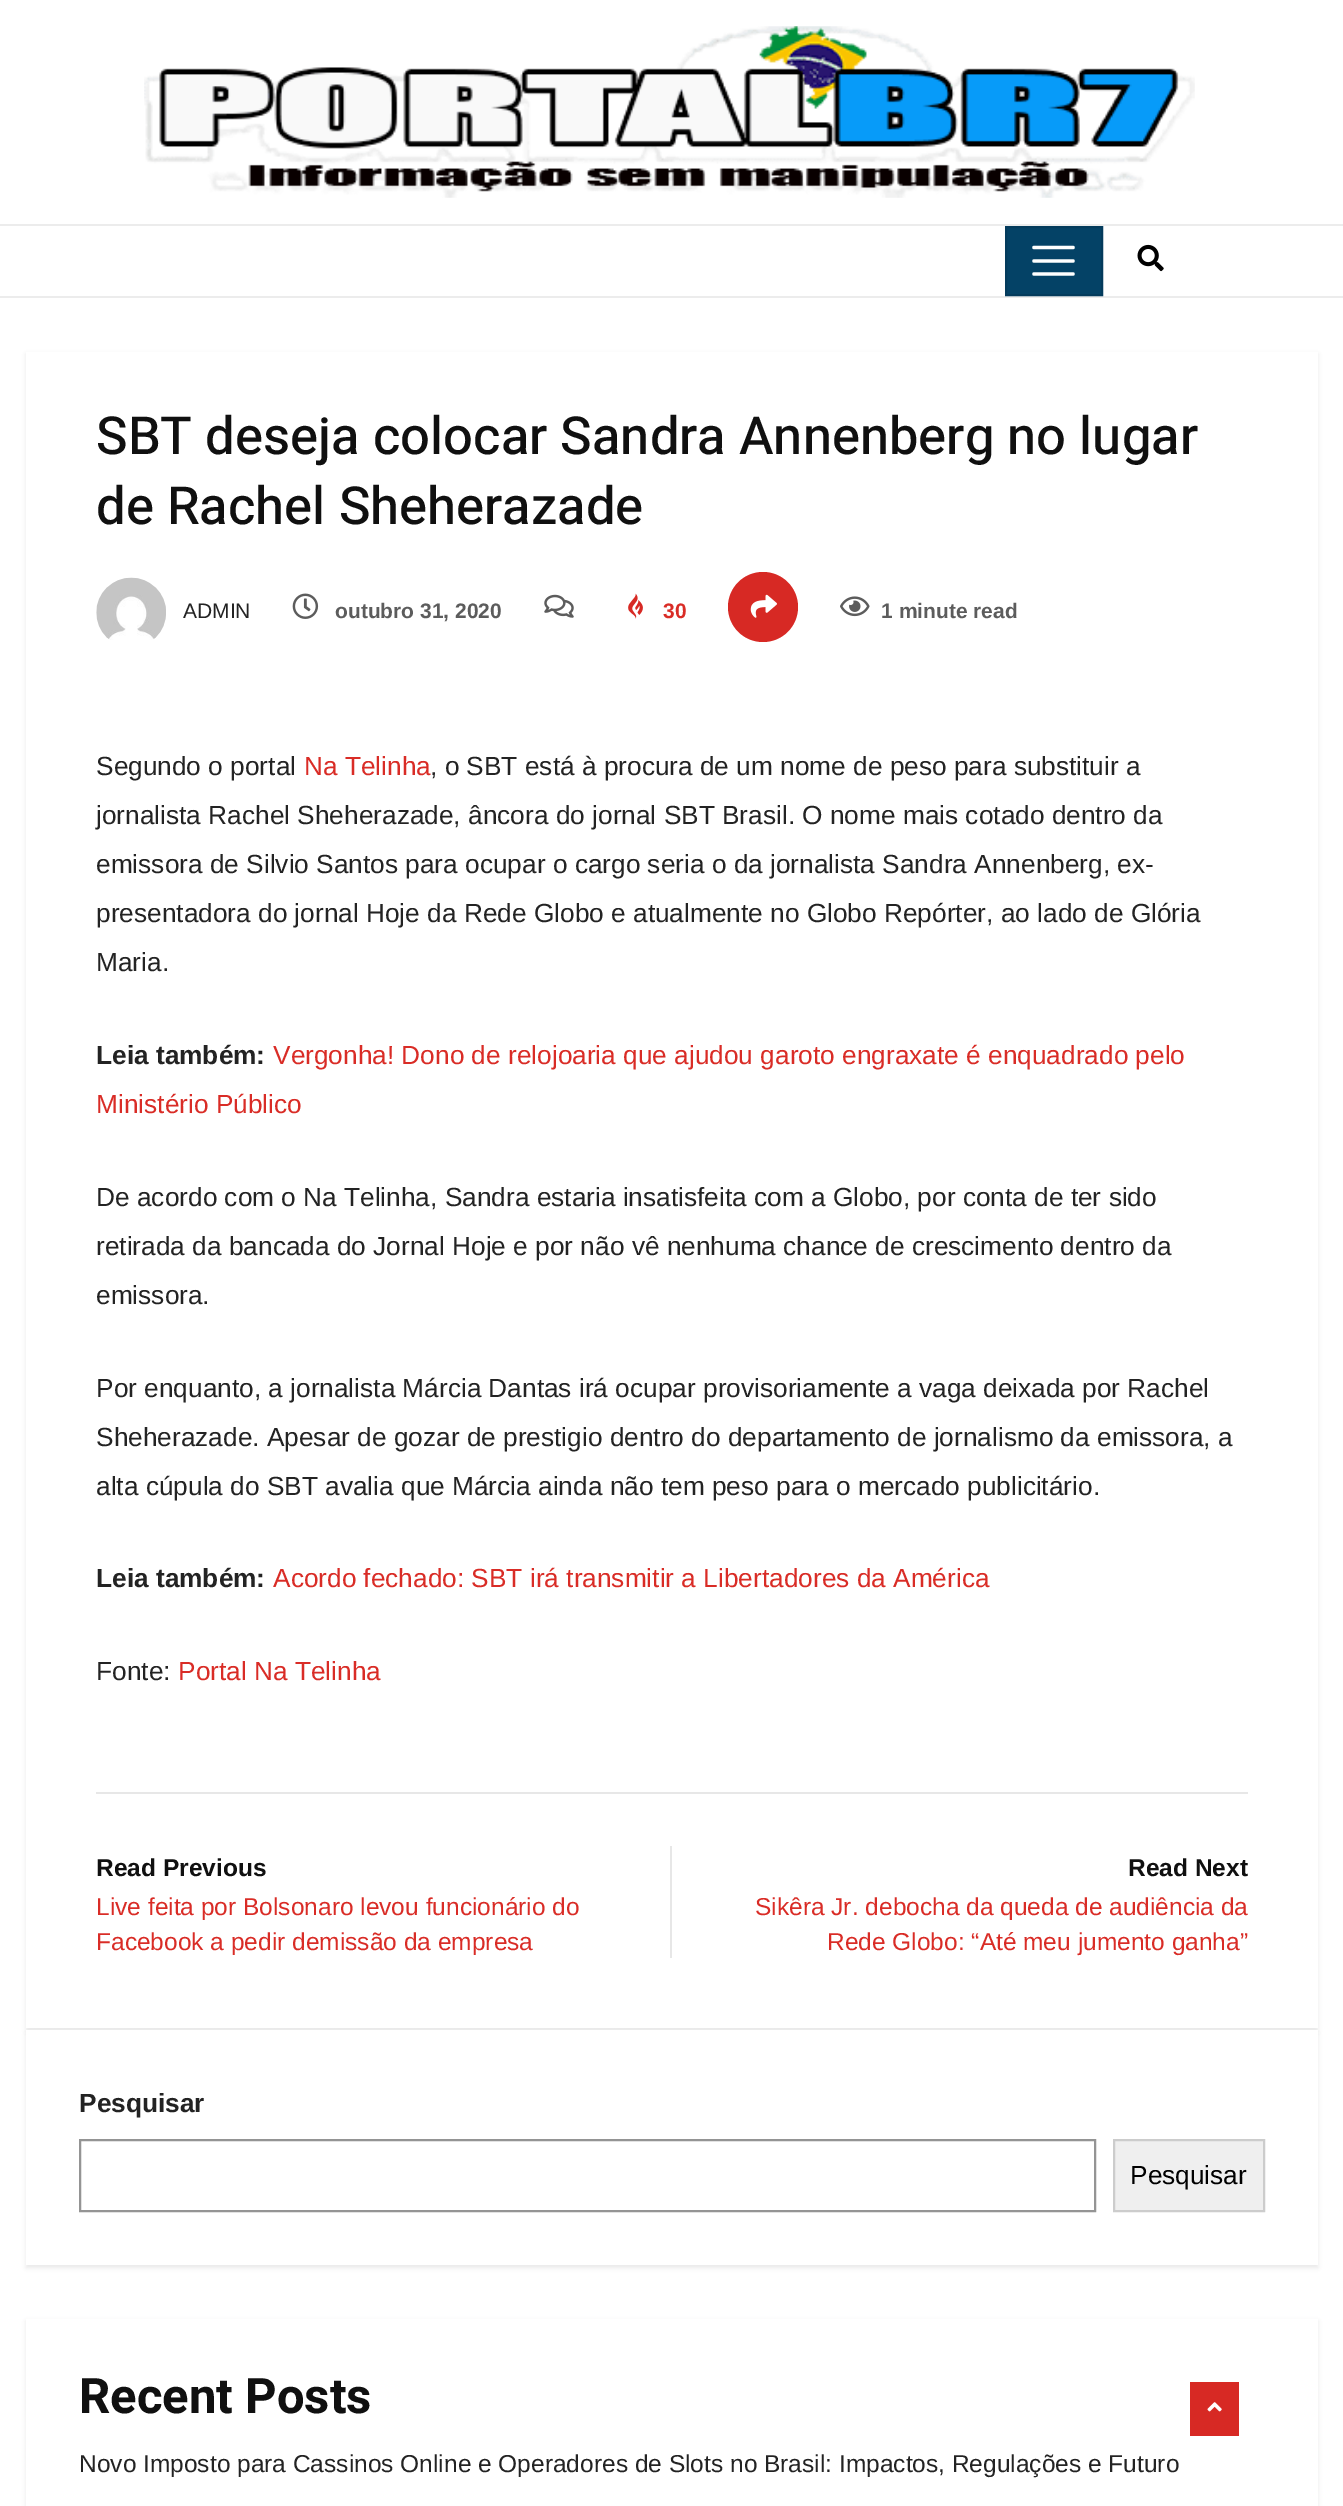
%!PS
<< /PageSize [1343 2506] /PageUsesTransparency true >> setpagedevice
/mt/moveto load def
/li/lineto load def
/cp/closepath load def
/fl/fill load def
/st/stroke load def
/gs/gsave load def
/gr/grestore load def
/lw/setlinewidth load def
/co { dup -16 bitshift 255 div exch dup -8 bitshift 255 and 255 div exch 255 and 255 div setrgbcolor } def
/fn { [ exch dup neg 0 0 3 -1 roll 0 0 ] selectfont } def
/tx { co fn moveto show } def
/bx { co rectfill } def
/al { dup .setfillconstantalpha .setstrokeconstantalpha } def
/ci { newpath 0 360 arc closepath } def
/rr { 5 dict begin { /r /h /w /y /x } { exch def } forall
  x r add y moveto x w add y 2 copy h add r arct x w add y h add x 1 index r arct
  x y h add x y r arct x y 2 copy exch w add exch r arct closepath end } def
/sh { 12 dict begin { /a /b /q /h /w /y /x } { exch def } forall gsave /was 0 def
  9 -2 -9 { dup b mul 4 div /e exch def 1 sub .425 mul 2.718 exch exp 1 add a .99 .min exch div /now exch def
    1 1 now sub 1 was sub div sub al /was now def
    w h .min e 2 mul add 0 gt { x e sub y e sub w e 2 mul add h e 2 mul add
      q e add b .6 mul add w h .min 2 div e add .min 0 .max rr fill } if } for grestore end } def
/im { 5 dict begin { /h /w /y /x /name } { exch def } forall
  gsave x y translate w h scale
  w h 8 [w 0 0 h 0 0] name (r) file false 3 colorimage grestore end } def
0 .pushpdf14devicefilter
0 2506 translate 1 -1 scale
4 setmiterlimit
0 0 1343 2506 16#FFFFFF bx
(media/1.raw) 144 26 1051 172 im
0 224 1343 2 16#ECECEC bx
0 296 1343 2 16#ECECEC bx
16#044266 co
1006 227 mt 1102 227 li 1102 295 li 1006 295 li cp gs fl gr
16#043B5C co
2 lw
st
16#FFFFFF co
3.3 lw
1 setlinecap
1034 247.5 mt 1073 247.5 li 1034 261 mt 1073 261 li 1034 274 mt 1073 274 li st
(media/2.raw) 1137 244 27 28 im
16#000000 co
26 354 1292 1678 0 2 .08 sh
26 352 1292 1676 16#FFFFFF bx
(media/3.raw) 96 577 70 63 im
(media/4.raw) 292 593 27 26 im
(media/5.raw) 544 594 30 24 im
(media/6.raw) 628 593 15 26 im
16#D72924 co
763 607 35 ci fl
(media/7.raw) 750 594 27 24 im
(media/8.raw) 840 596 30 21 im
96 1792 1152 2 16#E7E7E7 bx
670 1846 2 112 16#E7E7E7 bx
16#000000 co
26 2034 1292 234 0 2 .08 sh
26 2030 1292 235 16#FFFFFF bx
16#949494 co
2 lw
0 setlinecap
80 2140 1015 71 rectstroke
16#EFEFEF co
1114 2140 mt 1264 2140 li 1264 2211 li 1114 2211 li cp gs fl gr
16#CCCCCC co
st
16#000000 co
26 2321 1292 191 0 2 .08 sh
26 2319 1292 187 16#FFFFFF bx
1190 2382 49 54 16#D72924 bx
(media/9.raw) 1207 2402 15 10 im
(SBT deseja colocar Sandra Annenberg no lugar) 96 454 /Heebo-Medium 52.5 16#101010 tx
(de Rachel Sheherazade) 96 524 /Heebo-Medium 52.5 16#101010 tx
(ADMIN) 183 618 /Arimo-Regular 21 16#232323 tx
(outubro 31, 2020) 335 618 /Arimo-Bold 21 16#5C5C5C tx
(30) 663 618 /Arimo-Bold 21 16#D92C26 tx
(1 minute read) 881 618 /Arimo-Bold 21 16#5C5C5C tx
(Segundo o portal) 96 775 /Arimo-Regular 26.25 16#232323 tx
(Na Telinha) 304 775 /Arimo-Regular 26.25 16#D92C26 tx
(, o SBT está à procura de um nome de peso para substituir a) 430 775 /Arimo-Regular 26.25 16#232323 tx
(jornalista Rachel Sheherazade, âncora do jornal SBT Brasil. O nome mais cotado dentro da) 96 824 /Arimo-Regular 26.25 16#232323 tx
(emissora de Silvio Santos para ocupar o cargo seria o da jornalista Sandra Annenberg, ex-) 96 873 /Arimo-Regular 26.25 16#232323 tx
(presentadora do jornal Hoje da Rede Globo e atualmente no Globo Repórter, ao lado de Glória) 96 922 /Arimo-Regular 26.25 16#232323 tx
(Maria.) 96 971 /Arimo-Regular 26.25 16#232323 tx
(Leia também:) 96 1064 /Arimo-Bold 26.25 16#232323 tx
(Vergonha! Dono de relojoaria que ajudou garoto engraxate é enquadrado pelo) 273 1064 /Arimo-Regular 26.25 16#D92C26 tx
(Ministério Público) 96 1113 /Arimo-Regular 26.25 16#D92C26 tx
(De acordo com o Na Telinha, Sandra estaria insatisfeita com a Globo, por conta de ter sido) 96 1206 /Arimo-Regular 26.25 16#232323 tx
(retirada da bancada do Jornal Hoje e por não vê nenhuma chance de crescimento dentro da) 96 1255 /Arimo-Regular 26.25 16#232323 tx
(emissora.) 96 1304 /Arimo-Regular 26.25 16#232323 tx
(Por enquanto, a jornalista Márcia Dantas irá ocupar provisoriamente a vaga deixada por Rachel) 96 1397 /Arimo-Regular 26.25 16#232323 tx
(Sheherazade. Apesar de gozar de prestigio dentro do departamento de jornalismo da emissora, a) 96 1446 /Arimo-Regular 26.25 16#232323 tx
(alta cúpula do SBT avalia que Márcia ainda não tem peso para o mercado publicitário.) 96 1495 /Arimo-Regular 26.25 16#232323 tx
(Leia também:) 96 1587 /Arimo-Bold 26.25 16#232323 tx
(Acordo fechado: SBT irá transmitir a Libertadores da América) 273 1587 /Arimo-Regular 26.25 16#D92C26 tx
(Fonte:) 96 1680 /Arimo-Regular 26.25 16#232323 tx
(Portal Na Telinha) 178 1680 /Arimo-Regular 26.25 16#D92C26 tx
(Read Previous) 96 1876 /Arimo-Bold 24.5 16#101010 tx
(Live feita por Bolsonaro levou funcionário do) 96 1915 /Arimo-Regular 24.5 16#D92C26 tx
(Facebook a pedir demissão da empresa) 96 1950 /Arimo-Regular 24.5 16#D92C26 tx
(Read Next) 1128 1876 /Arimo-Bold 24.5 16#101010 tx
(Sikêra Jr. debocha da queda de audiência da) 755 1915 /Arimo-Regular 24.5 16#D92C26 tx
(Rede Globo: “Até meu jumento ganha”) 827 1950 /Arimo-Regular 24.5 16#D92C26 tx
(Pesquisar) 79 2112 /Arimo-Bold 26.25 16#232323 tx
(Pesquisar) 1130 2184 /Arimo-Regular 26.25 16#000000 tx
(Recent Posts) 79 2413 /Heebo-Bold 49 16#101010 tx
(Novo Imposto para Cassinos Online e Operadores de Slots no Brasil: Impactos, Regulações e Futuro) 79 2472 /Arimo-Regular 24.5 16#232323 tx
.poppdf14devicefilter showpage
